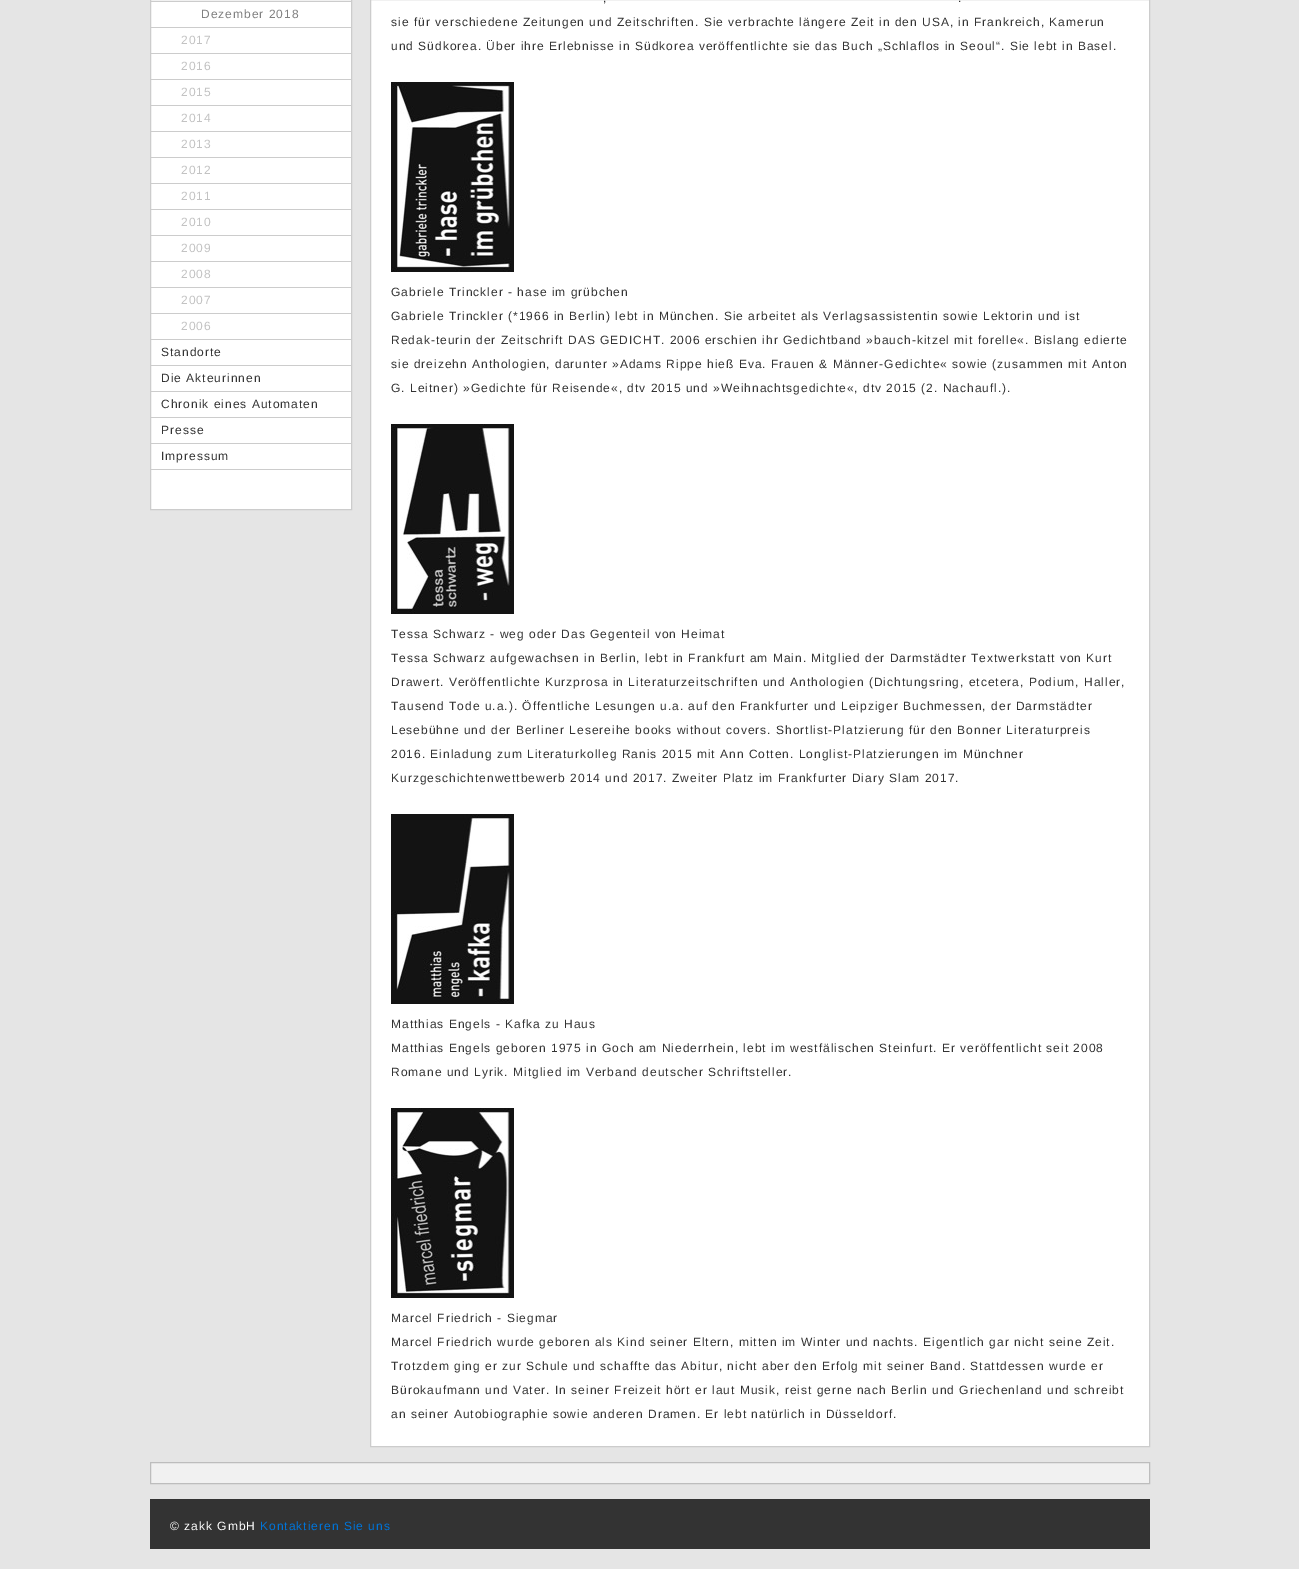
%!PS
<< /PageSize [1299 1569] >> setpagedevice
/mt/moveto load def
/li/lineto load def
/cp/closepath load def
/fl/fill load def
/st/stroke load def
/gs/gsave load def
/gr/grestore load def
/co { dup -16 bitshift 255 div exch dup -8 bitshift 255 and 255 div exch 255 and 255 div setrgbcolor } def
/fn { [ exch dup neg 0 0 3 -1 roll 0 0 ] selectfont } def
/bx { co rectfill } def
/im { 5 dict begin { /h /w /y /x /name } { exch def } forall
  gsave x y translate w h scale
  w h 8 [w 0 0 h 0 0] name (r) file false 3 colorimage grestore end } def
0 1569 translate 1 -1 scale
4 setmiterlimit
0 0 1299 1569 16#E5E5E5 bx
16#FFFFFF co
150.5 -.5 mt 351.5 -.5 li 351.5 509.5 li 150.5 509.5 li cp gs fl gr
16#CCCCCC co
st
151 1 200 1 16#CCCCCC bx
151 27 200 1 16#CCCCCC bx
151 53 200 1 16#CCCCCC bx
151 79 200 1 16#CCCCCC bx
151 105 200 1 16#CCCCCC bx
151 131 200 1 16#CCCCCC bx
151 157 200 1 16#CCCCCC bx
151 183 200 1 16#CCCCCC bx
151 209 200 1 16#CCCCCC bx
151 235 200 1 16#CCCCCC bx
151 261 200 1 16#CCCCCC bx
151 287 200 1 16#CCCCCC bx
151 313 200 1 16#CCCCCC bx
151 339 200 1 16#CCCCCC bx
151 365 200 1 16#CCCCCC bx
151 391 200 1 16#CCCCCC bx
151 417 200 1 16#CCCCCC bx
151 443 200 1 16#CCCCCC bx
151 469 200 1 16#CCCCCC bx
16#FFFFFF co
370.5 -.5 mt 1149.5 -.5 li 1149.5 1446.5 li 370.5 1446.5 li cp gs fl gr
16#CCCCCC co
st
(media/1.raw) 391 82 123 190 im
(media/2.raw) 391 424 123 190 im
(media/3.raw) 391 814 123 190 im
(media/4.raw) 391 1108 123 190 im
16#F1F1F1 co
150.5 1462.5 mt 1149.5 1462.5 li 1149.5 1483.5 li 150.5 1483.5 li cp gs fl gr
16#BDBDBD co
st
150 1499 1000 50 16#333333 bx
/LiberationSans-Regular 12 fn
16#808080 co
201 18 mt 1 0 (Dezember 2018) ashow
16#C3C3C3 co
181 44 mt 1 0 (2017) ashow
181 70 mt 1 0 (2016) ashow
181 96 mt 1 0 (2015) ashow
181 122 mt 1 0 (2014) ashow
181 148 mt 1 0 (2013) ashow
181 174 mt 1 0 (2012) ashow
181 200 mt 1 0 (2011) ashow
181 226 mt 1 0 (2010) ashow
181 252 mt 1 0 (2009) ashow
181 278 mt 1 0 (2008) ashow
181 304 mt 1 0 (2007) ashow
181 330 mt 1 0 (2006) ashow
16#333333 co
161 356 mt 1 0 (Standorte) ashow
161 382 mt 1 0 (Die Akteurinnen) ashow
161 408 mt 1 0 (Chronik eines Automaten) ashow
161 434 mt 1 0 (Presse) ashow
161 460 mt 1 0 (Impressum) ashow
603 2 mt 1 0 (,) ashow
958 2 mt 1 0 (.) ashow
391 26 mt 1 0 (sie für verschiedene Zeitungen und Zeitschriften. Sie verbrachte längere Zeit in den USA, in Frankreich, Kamerun) ashow
391 50 mt 1 0 (und Südkorea. Über ihre Erlebnisse in Südkorea veröffentlichte sie das Buch „Schlaflos in Seoul“. Sie lebt in Basel.) ashow
391 296 mt 1 0 (Gabriele Trinckler - hase im grübchen) ashow
391 320 mt 1 0 (Gabriele Trinckler \(*1966 in Berlin\) lebt in München. Sie arbeitet als Verlagsassistentin sowie Lektorin und ist) ashow
391 344 mt 1 0 (Redak-teurin der Zeitschrift DAS GEDICHT. 2006 erschien ihr Gedichtband »bauch-kitzel mit forelle«. Bislang edierte) ashow
391 368 mt 1 0 (sie dreizehn Anthologien, darunter »Adams Rippe hieß Eva. Frauen & Männer-Gedichte« sowie \(zusammen mit Anton) ashow
391 392 mt 1 0 (G. Leitner\) »Gedichte für Reisende«, dtv 2015 und »Weihnachtsgedichte«, dtv 2015 \(2. Nachaufl.\).) ashow
391 638 mt 1 0 (Tessa Schwarz - weg oder Das Gegenteil von Heimat) ashow
391 662 mt 1 0 (Tessa Schwarz aufgewachsen in Berlin, lebt in Frankfurt am Main. Mitglied der Darmstädter Textwerkstatt von Kurt) ashow
391 686 mt 1 0 (Drawert. Veröffentlichte Kurzprosa in Literaturzeitschriften und Anthologien \(Dichtungsring, etcetera, Podium, Haller,) ashow
391 710 mt 1 0 (Tausend Tode u.a.\). Öffentliche Lesungen u.a. auf den Frankfurter und Leipziger Buchmessen, der Darmstädter) ashow
391 734 mt 1 0 (Lesebühne und der Berliner Lesereihe books without covers. Shortlist-Platzierung für den Bonner Literaturpreis) ashow
391 758 mt 1 0 (2016. Einladung zum Literaturkolleg Ranis 2015 mit Ann Cotten. Longlist-Platzierungen im Münchner) ashow
391 782 mt 1 0 (Kurzgeschichtenwettbewerb 2014 und 2017. Zweiter Platz im Frankfurter Diary Slam 2017.) ashow
391 1028 mt 1 0 (Matthias Engels - Kafka zu Haus) ashow
391 1052 mt 1 0 (Matthias Engels geboren 1975 in Goch am Niederrhein, lebt im westfälischen Steinfurt. Er veröffentlicht seit 2008) ashow
391 1076 mt 1 0 (Romane und Lyrik. Mitglied im Verband deutscher Schriftsteller.) ashow
391 1322 mt 1 0 (Marcel Friedrich - Siegmar) ashow
391 1346 mt 1 0 (Marcel Friedrich wurde geboren als Kind seiner Eltern, mitten im Winter und nachts. Eigentlich gar nicht seine Zeit.) ashow
391 1370 mt 1 0 (Trotzdem ging er zur Schule und schaffte das Abitur, nicht aber den Erfolg mit seiner Band. Stattdessen wurde er) ashow
391 1394 mt 1 0 (Bürokaufmann und Vater. In seiner Freizeit hört er laut Musik, reist gerne nach Berlin und Griechenland und schreibt) ashow
391 1418 mt 1 0 (an seiner Autobiographie sowie anderen Dramen. Er lebt natürlich in Düsseldorf.) ashow
16#FFFFFF co
170 1530 mt 1 0 (© zakk GmbH) ashow
16#0074D8 co
260 1530 mt 1 0 (Kontaktieren Sie uns) ashow
showpage
